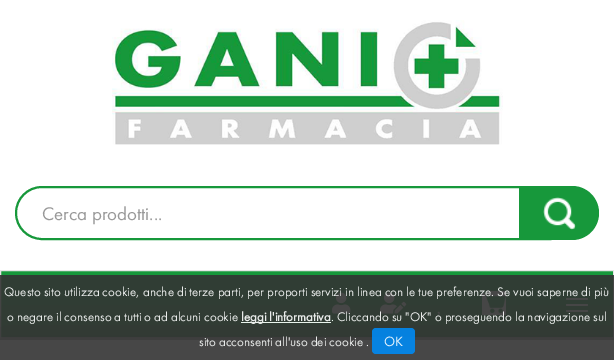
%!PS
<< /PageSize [614 360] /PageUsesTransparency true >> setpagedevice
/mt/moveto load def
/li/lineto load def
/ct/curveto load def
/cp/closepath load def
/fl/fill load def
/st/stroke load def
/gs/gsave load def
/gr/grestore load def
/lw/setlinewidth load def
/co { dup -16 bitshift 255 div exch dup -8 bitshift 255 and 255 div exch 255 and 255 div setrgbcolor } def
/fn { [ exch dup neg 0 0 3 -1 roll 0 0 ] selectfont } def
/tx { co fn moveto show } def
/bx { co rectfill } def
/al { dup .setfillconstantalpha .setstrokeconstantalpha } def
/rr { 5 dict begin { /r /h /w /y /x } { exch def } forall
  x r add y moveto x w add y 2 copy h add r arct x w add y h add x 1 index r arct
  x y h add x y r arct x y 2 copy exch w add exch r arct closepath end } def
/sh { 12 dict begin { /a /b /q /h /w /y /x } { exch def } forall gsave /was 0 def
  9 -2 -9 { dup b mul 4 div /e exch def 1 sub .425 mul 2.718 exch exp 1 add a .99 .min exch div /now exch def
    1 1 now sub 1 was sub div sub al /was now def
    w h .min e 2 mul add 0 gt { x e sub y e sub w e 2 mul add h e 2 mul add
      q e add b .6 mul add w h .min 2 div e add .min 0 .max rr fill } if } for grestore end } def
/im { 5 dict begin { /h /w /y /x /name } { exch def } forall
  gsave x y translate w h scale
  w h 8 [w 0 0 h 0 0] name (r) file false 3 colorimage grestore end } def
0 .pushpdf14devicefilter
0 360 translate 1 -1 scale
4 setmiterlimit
0 0 614 360 16#FFFFFF bx
(media/1.raw) 112 20 391 125 im
16#17983B co
2 lw
16 187 560 52 26 rr st
519 186 mt 572 186 li 587 186 599 198 599 213 ct 599 228 587 240 572 240 ct 519 240 li cp fl
(media/2.raw) 543 197 33 33 im
.5 270.5 mt 613.5 270.5 li 613.5 337.5 li .5 337.5 li cp gs fl gr
16#E7E7E7 co
1 lw
st
(media/3.raw) 332 292 19 22 im
(media/4.raw) 380 292 27 22 im
482 291 24 24 16#FFFFFF bx
(media/5.raw) 482 291 24 22 im
566 298 22 2 1 rr fl
566 304 22 2 1 rr fl
566 310 22 2 1 rr fl
(media/6.raw) 437 311 3 5 im
gs
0 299 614 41 rectclip
16#444444 co
0 340 614 20 0 20 1 sh
gr
0.9 al
0 275 614 85 16#333333 bx
1 al
241 322 90 1 16#E9F3EC bx
0.9 al
16#0089F2 co
372 328 43 26 4 rr fl
1 al
(Cerca prodotti...) 42 220 /FuturaPT-Regular 19 16#999999 tx
(Questo sito utilizza cookie, anche di terze parti, per proporti servizi in linea con le tue preferenze. Se vuoi saperne di più) 4 296 /FuturaPT-Regular 13 16#EAECEB tx
(o negare il consenso a tutti o ad alcuni cookie) 7 321 /FuturaPT-Regular 13 16#EAECEB tx
(leggi l'informativa) 241 321 /FuturaPT-Bold 13 16#EAECEB tx
(.) 331 321 /FuturaPT-Regular 13 16#E8F4EC tx
(Cliccando su "OK" o proseguendo la navigazione sul) 337 321 /FuturaPT-Regular 13 16#EAECEB tx
(sito acconsenti all'uso dei cookie .) 199 346 /FuturaPT-Regular 13 16#EAECEB tx
(OK) 384 346 /FuturaPT-Regular 14 16#E6F3FC tx
.poppdf14devicefilter showpage
